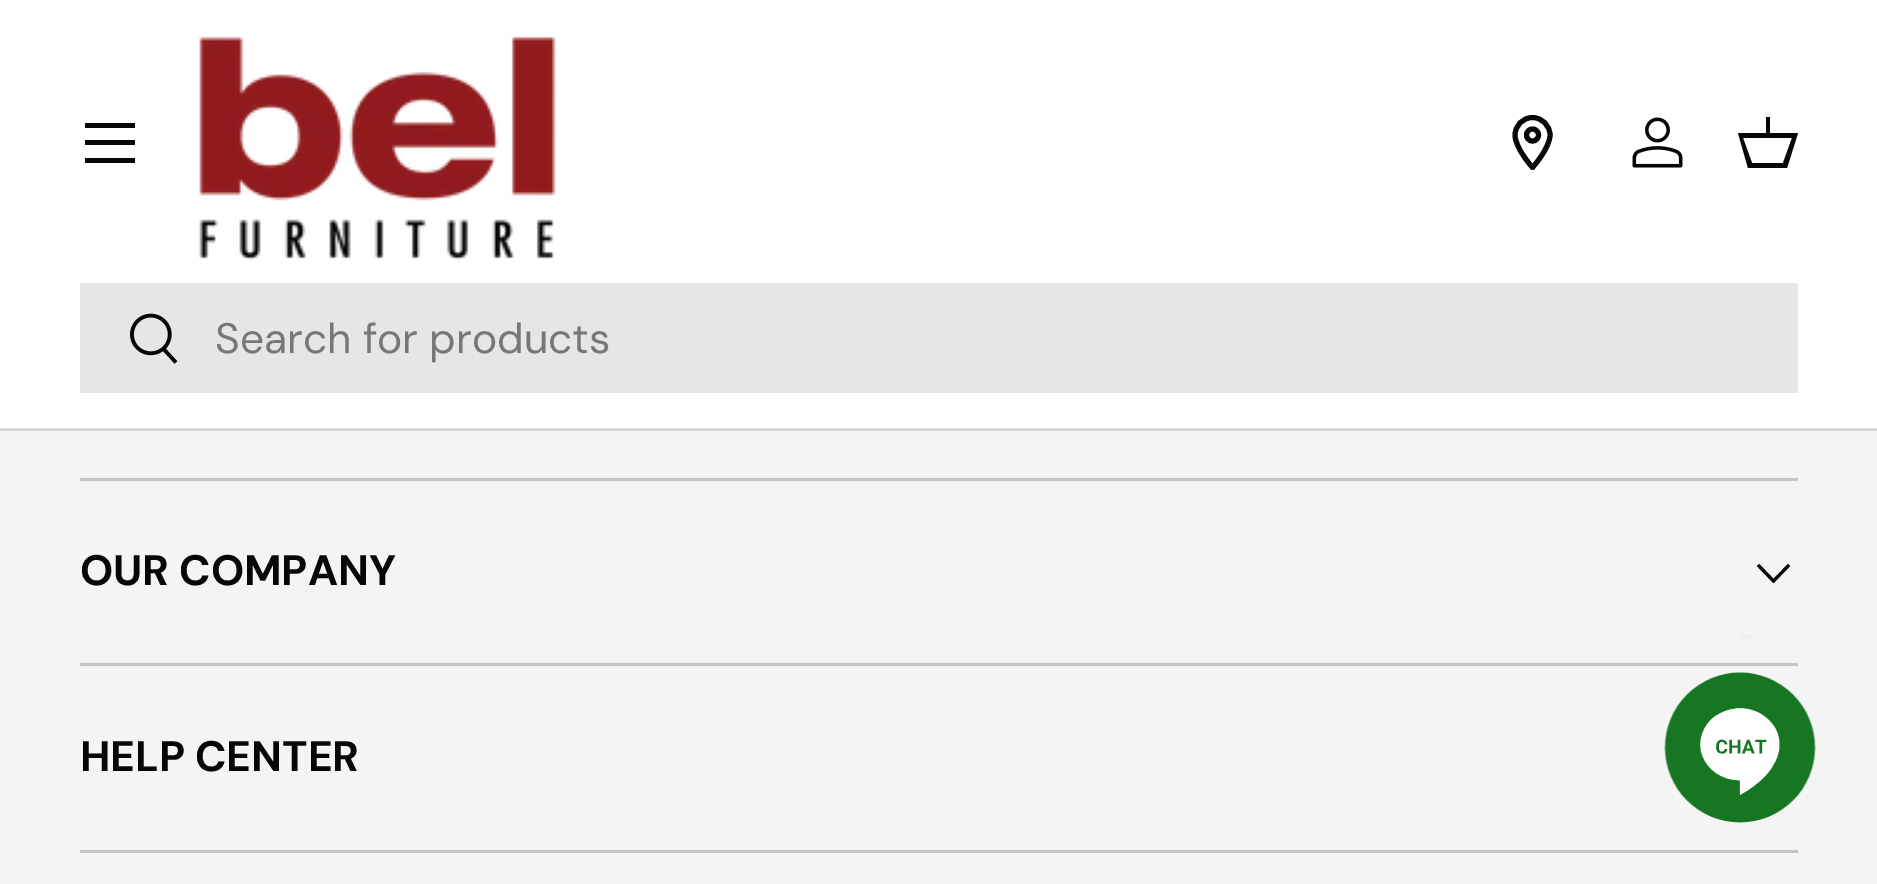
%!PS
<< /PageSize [1877 884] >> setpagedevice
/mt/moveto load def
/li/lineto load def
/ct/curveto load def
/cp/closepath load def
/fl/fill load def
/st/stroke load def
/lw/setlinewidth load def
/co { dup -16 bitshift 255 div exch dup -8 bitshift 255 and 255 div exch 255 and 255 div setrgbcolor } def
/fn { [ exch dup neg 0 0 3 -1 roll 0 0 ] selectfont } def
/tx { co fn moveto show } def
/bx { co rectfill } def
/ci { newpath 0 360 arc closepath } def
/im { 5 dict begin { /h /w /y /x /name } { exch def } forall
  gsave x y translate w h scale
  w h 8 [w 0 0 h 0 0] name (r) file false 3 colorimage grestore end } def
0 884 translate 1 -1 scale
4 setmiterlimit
0 0 1877 884 16#F4F4F4 bx
0 0 1877 428 16#FFFFFF bx
0 428 1877 2 16#DADADA bx
85 123 50 5 16#070707 bx
85 158 50 5 16#070707 bx
85 140 50 5 16#070707 bx
(media/1.raw) 199 36 357 225 im
5 lw
1 setlinecap
1 setlinejoin
1532.5 117.5 mt 1523 117.5 1515 125.5 1515 135 ct 1515 148 1532.5 167.5 1532.5 167.5 ct 1532.5 167.5 1550 148 1550 135 ct 1550 125.5 1542 117.5 1532.5 117.5 ct cp st
0 setlinecap
0 setlinejoin
1532.5 135 6 ci st
(media/2.raw) 1632 117 51 51 im
1766 133 mt 1766 117 li 1770 117 li 1770 133 li 1798 133 li 1787 168 li 1748 168 li 1738 133 li cp 1743 138 mt 1752 163 li 1783 163 li 1792 138 li cp fl
80 283 1718 110 16#E6E6E6 bx
(media/3.raw) 130 313 48 51 im
0 430 1877 1 16#D0D0D0 bx
80 478 1718 3 16#C5C5C5 bx
80 663 1718 3 16#C5C5C5 bx
16#070707 co
3.1 lw
1789 565 mt 1773.5 581 li 1758 565 li st
80 850 1718 3 16#C5C5C5 bx
(media/4.raw) 1664 635 152 188 im
(Search for products) 215 353 /DMSans-Regular 42.5 16#777777 tx
(OUR COMPANY) 80 585 /DMSans-Bold 42.5 16#070707 tx
(HELP CENTER) 80 771 /DMSans-Bold 42.5 16#070707 tx
showpage
